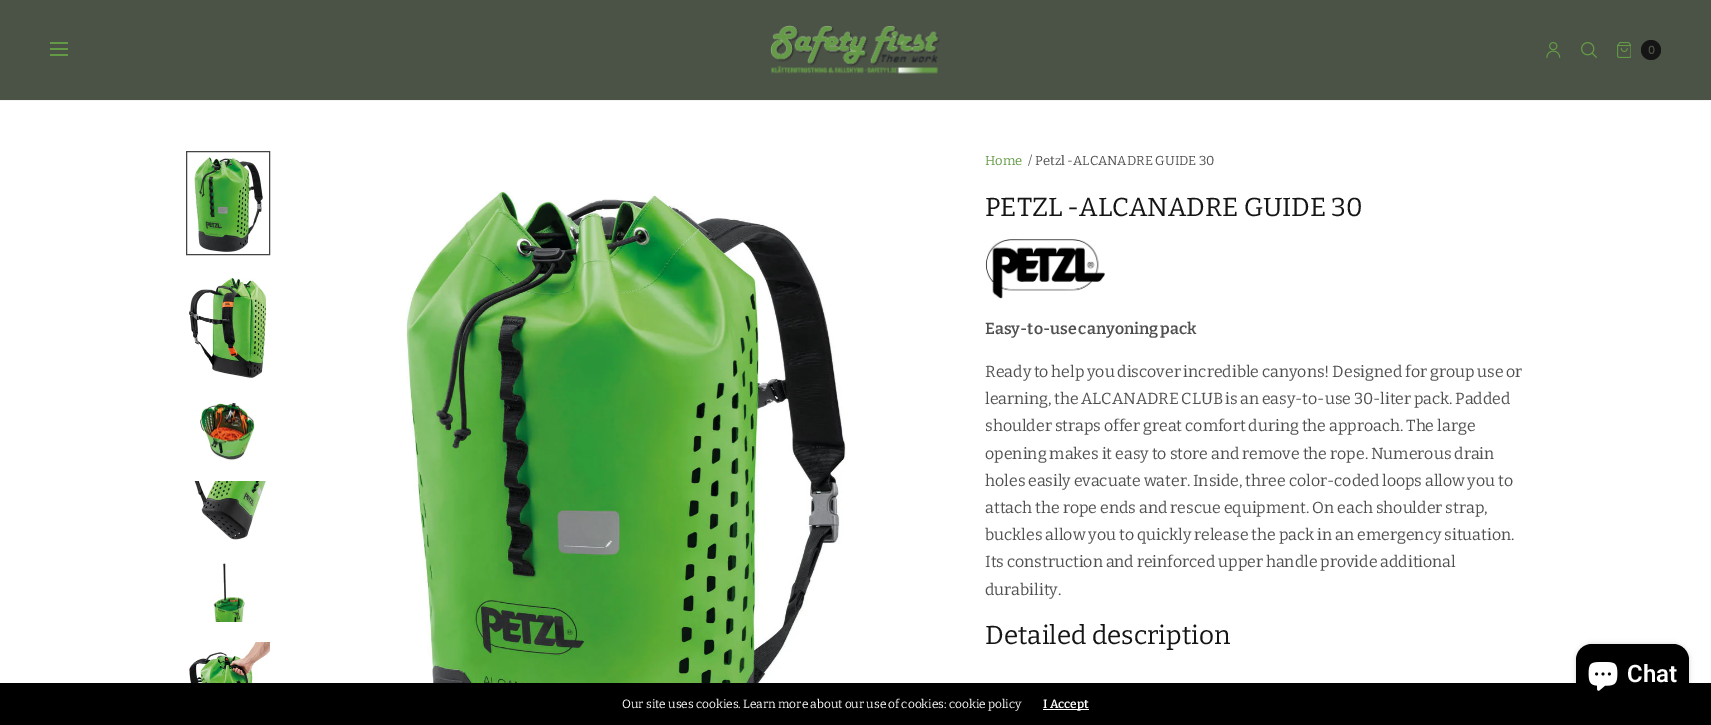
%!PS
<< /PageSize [1711 725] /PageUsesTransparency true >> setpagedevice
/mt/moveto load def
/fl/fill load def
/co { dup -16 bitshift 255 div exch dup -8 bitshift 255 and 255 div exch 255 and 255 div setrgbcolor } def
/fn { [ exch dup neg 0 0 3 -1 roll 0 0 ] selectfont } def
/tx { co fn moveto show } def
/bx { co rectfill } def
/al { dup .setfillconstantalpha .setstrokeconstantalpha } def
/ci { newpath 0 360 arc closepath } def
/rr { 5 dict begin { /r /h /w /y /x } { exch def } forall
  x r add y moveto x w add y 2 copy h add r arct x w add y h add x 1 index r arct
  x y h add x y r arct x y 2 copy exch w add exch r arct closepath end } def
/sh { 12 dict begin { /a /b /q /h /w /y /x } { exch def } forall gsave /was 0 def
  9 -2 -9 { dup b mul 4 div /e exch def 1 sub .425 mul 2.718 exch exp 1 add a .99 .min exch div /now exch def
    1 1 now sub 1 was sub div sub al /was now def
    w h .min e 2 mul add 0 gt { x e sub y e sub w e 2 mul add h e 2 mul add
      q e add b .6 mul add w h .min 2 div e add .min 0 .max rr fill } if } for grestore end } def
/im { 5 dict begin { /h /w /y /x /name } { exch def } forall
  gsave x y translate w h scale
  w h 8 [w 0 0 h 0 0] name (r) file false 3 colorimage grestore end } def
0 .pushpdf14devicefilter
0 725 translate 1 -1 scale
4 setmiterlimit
0 0 1711 725 16#FFFFFF bx
0 0 1711 100 16#4B5246 bx
0 100 1711 1 16#F4F4F4 bx
50 42 18 2 16#639A45 bx
50 48 18 2 16#639A45 bx
50 54 18 2 16#639A45 bx
(media/1.raw) 770 25 170 49 im
(media/2.raw) 1546 42 15 16 im
(media/3.raw) 1581 42 16 16 im
(media/4.raw) 1617 42 14 16 im
16#151515 co
1651 50 10 ci fl
(media/5.raw) 194 155 69 97 im
16#444444 co
186.5 151.5 83 103 rectstroke
(media/6.raw) 189 278 78 100 im
(media/7.raw) 200 401 55 60 im
(media/8.raw) 194 481 72 59 im
(media/9.raw) 213 563 32 59 im
(media/10.raw) 189 642 81 41 im
(media/11.raw) 406 191 440 492 im
(media/12.raw) 985 239 120 60 im
0 683 1711 42 16#000000 bx
1576 644 113 60 16 2.5 .15 sh
1576 644 113 60 16 rr fl
(media/13.raw) 1588 662 30 29 im
1043 709 46 1 16#FFFFFF bx
(0) 1648 54 /Poppins-Bold 11 16#4B5246 tx
(Home) 985 165 /Bitter-Regular 13 16#639A45 tx
(/) 1028 165 /Bitter-Regular 13 16#505050 tx
(Petzl -ALCANADRE GUIDE 30) 1035 165 /Bitter-Regular 13 16#505050 tx
(PETZL -ALCANADRE GUIDE 30) 985 216 /Bitter-Regular 26 16#151515 tx
/Bitter-SemiBold 16 fn
16#505050 co
985 334 mt -1 0 32 (Easy-to-use canyoning pack) widthshow
/Bitter-Regular 16 fn
985 377 mt -.5 0 32 (Ready to help you discover incredible canyons! Designed for group use or) widthshow
985 404 mt -.75 0 32 (learning, the ALCANADRE CLUB is an easy-to-use 30-liter pack. Padded) widthshow
985 431 mt -.3 0 32 (shoulder straps offer great comfort during the approach. The large) widthshow
985 459 mt -.3 0 32 (opening makes it easy to store and remove the rope. Numerous drain) widthshow
985 486 mt -.5 0 32 (holes easily evacuate water. Inside, three color-coded loops allow you to) widthshow
985 513 mt -.25 0 32 (attach the rope ends and rescue equipment. On each shoulder strap,) widthshow
985 540 mt -.25 0 32 (buckles allow you to quickly release the pack in an emergency situation.) widthshow
985 567 mt -.5 0 32 (Its construction and reinforced upper handle provide additional) widthshow
(durability.) 985 595 /Bitter-Regular 16 16#505050 tx
(Detailed description) 985 644 /Bitter-Regular 26 16#151515 tx
(Chat) 1627 682 /Roboto-SemiBold 24 16#FFFFFF tx
/Bitter-Regular 12 fn
622 708 mt -.25 0 32 (Our site uses cookies. Learn more about our use of cookies: cookie policy) widthshow
(I Accept) 1043 708 /Bitter-SemiBold 12 16#FFFFFF tx
.poppdf14devicefilter showpage
